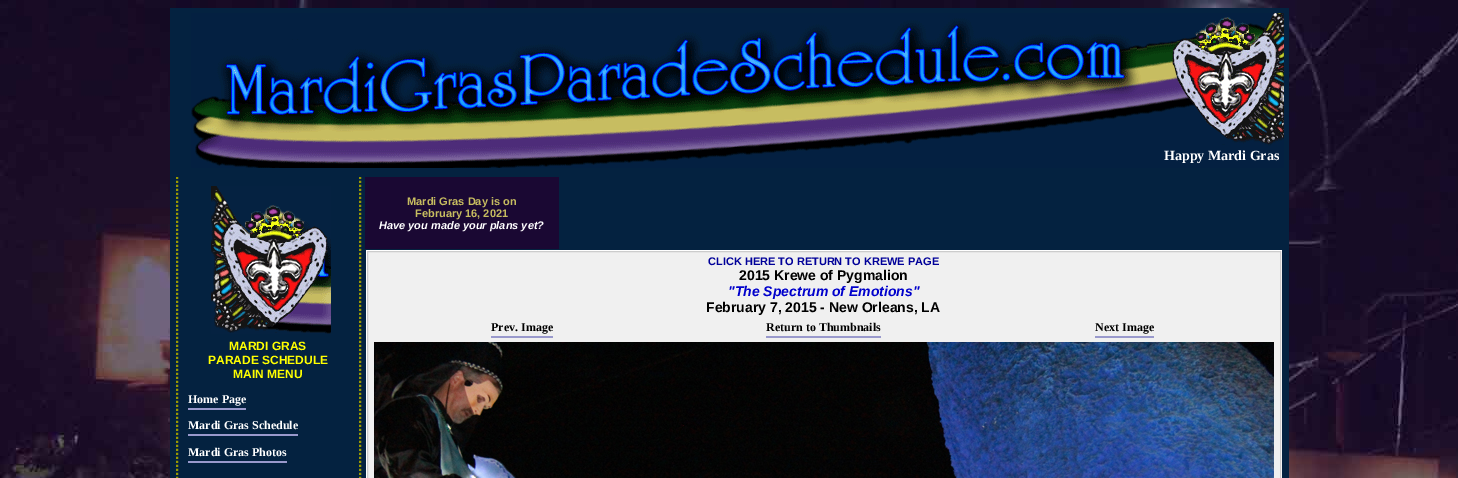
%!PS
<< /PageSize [1458 478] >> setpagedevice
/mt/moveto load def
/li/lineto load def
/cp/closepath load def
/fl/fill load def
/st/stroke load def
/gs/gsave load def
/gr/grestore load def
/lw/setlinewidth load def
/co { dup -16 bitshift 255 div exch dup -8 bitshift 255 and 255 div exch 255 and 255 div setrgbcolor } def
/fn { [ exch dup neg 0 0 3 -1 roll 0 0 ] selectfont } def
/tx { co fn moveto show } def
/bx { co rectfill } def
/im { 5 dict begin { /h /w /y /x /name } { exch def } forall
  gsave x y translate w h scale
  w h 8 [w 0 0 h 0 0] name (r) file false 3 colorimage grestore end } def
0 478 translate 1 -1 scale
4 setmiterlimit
0 0 1458 478 16#FFFFFF bx
(media/1.raw) 0 0 1458 478 im
170 8 1119 470 16#042240 bx
(media/2.raw) 191 13 1093 155 im
365 177 194 72 16#1A0833 bx
366 250 916 228 16#FFFFFF bx
16#F0F0F0 co
367.5 251.5 mt 1280.5 251.5 li 1280.5 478.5 li 367.5 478.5 li cp gs fl gr
16#CCCCCC co
st
491 336 62 2 16#9999CC bx
766 336 115 2 16#9999CC bx
1095 336 59 2 16#9999CC bx
(media/3.raw) 374 342 900 136 im
16#999900 co
2 lw
[2 2] 0 setdash
360 177 mt 360 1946 li st
177 177 mt 177 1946 li st
(media/4.raw) 211 186 120 148 im
188 408 58 2 16#9999CC bx
188 434 110 2 16#9999CC bx
188 461 99 2 16#9999CC bx
(Happy Mardi Gras) 1164 160 /LiberationSerif-Bold 14 16#FFFFFF tx
(Mardi Gras Day is on) 407 205 /LiberationSans-Bold 11 16#C7BD60 tx
(February 16, 2021) 415 217 /LiberationSans-Bold 11 16#C7BD60 tx
(Have you made your plans yet?) 379 229 /LiberationSans-BoldItalic 11 16#FFFFFF tx
(CLICK HERE TO RETURN TO KREWE PAGE) 708 265 /LiberationSans-Bold 11 16#000099 tx
(2015 Krewe of Pygmalion) 739 280 /LiberationSans-Bold 14 16#000000 tx
("The Spectrum of Emotions") 728 296 /LiberationSans-BoldItalic 14 16#0000CC tx
(February 7, 2015 - New Orleans, LA) 706 312 /LiberationSans-Bold 14 16#000000 tx
(Prev. Image) 491 331 /LiberationSerif-Bold 12 16#000000 tx
(Return to Thumbnails) 766 331 /LiberationSerif-Bold 12 16#000000 tx
(Next Image) 1095 331 /LiberationSerif-Bold 12 16#000000 tx
(MARDI GRAS) 229 350 /LiberationSans-Bold 12 16#FFFF00 tx
(PARADE SCHEDULE) 208 364 /LiberationSans-Bold 12 16#FFFF00 tx
(MAIN MENU) 233 378 /LiberationSans-Bold 12 16#FFFF00 tx
(Home Page) 188 403 /LiberationSerif-Bold 12 16#FFFFFF tx
(Mardi Gras Schedule) 188 429 /LiberationSerif-Bold 12 16#FFFFFF tx
(Mardi Gras Photos) 188 456 /LiberationSerif-Bold 12 16#FFFFFF tx
showpage
